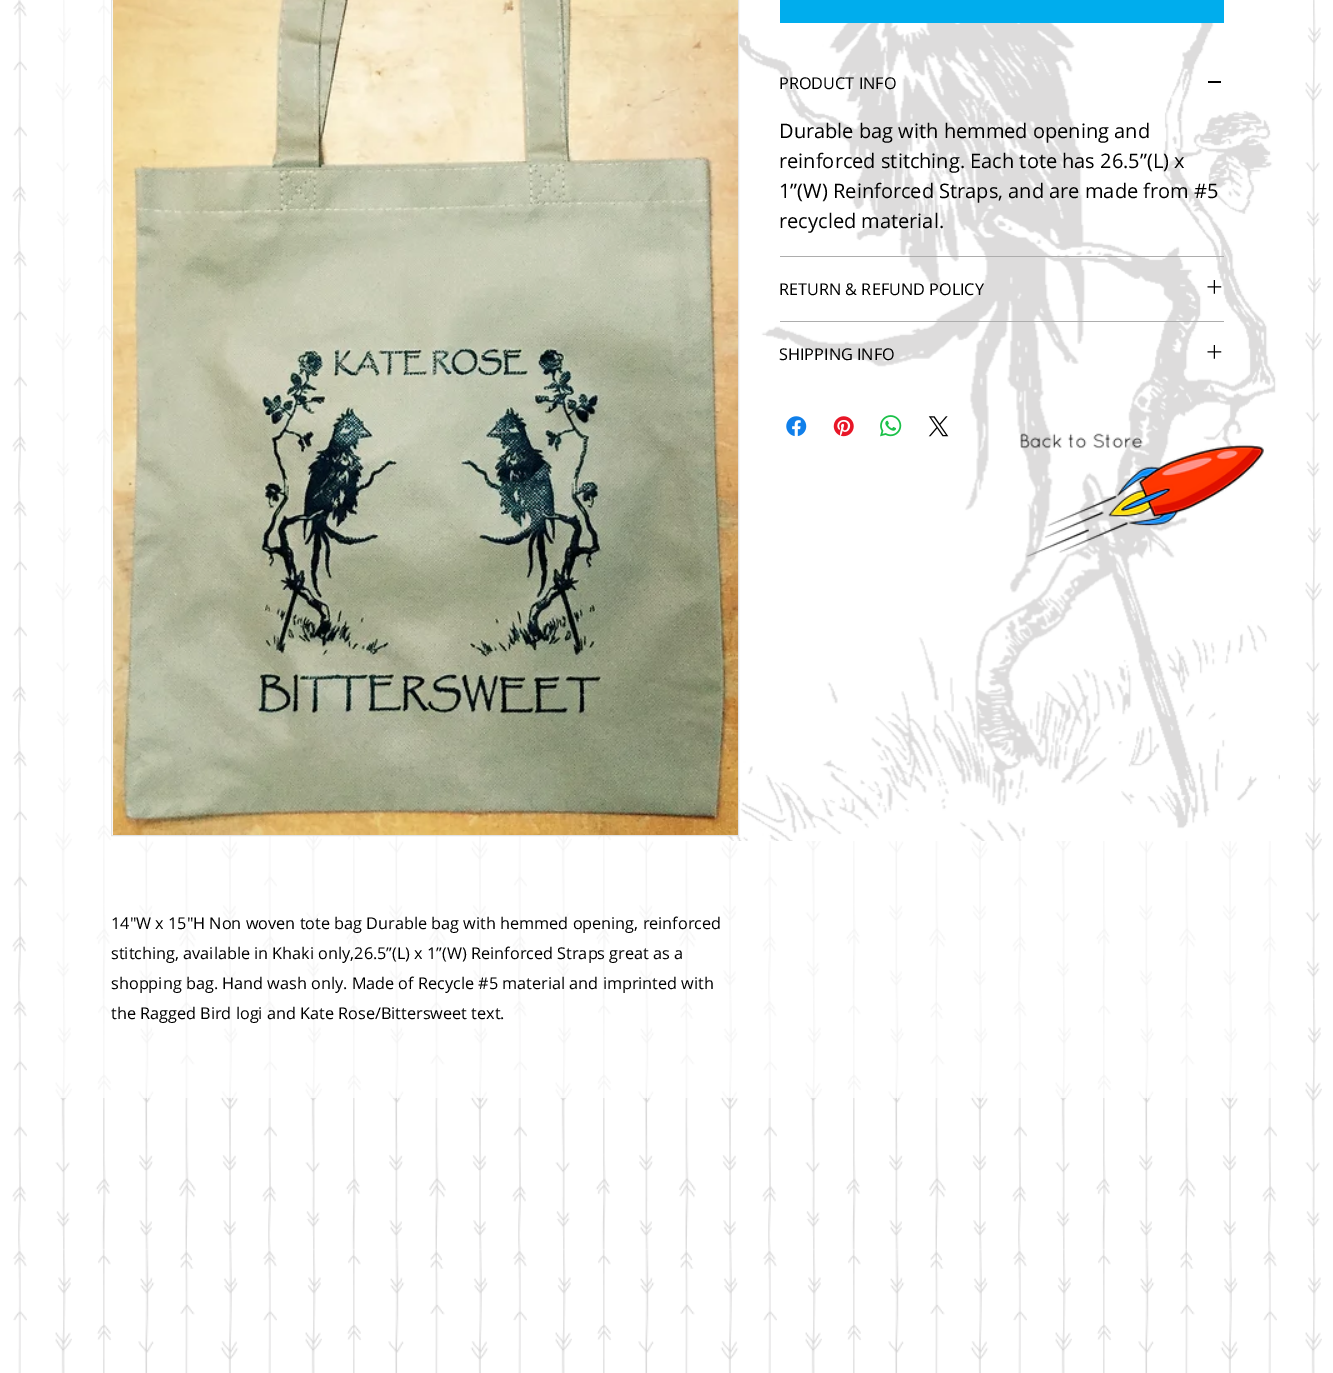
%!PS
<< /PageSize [1333 1373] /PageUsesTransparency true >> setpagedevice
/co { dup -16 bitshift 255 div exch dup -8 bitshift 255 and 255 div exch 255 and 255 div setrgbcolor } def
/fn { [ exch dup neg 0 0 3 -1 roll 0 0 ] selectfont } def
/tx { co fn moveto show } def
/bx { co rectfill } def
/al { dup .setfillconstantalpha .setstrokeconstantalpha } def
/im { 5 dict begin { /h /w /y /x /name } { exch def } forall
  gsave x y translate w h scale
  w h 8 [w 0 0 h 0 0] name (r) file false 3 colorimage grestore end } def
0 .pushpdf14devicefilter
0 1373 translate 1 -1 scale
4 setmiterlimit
0 0 1333 1373 16#FFFFFF bx
(media/1.raw) 12 0 1310 1373 im
0.7 al
55 0 1222 1098 16#FFFFFF bx
1 al
(media/2.raw) 681 0 599 841 im
780 0 444 23 16#00ADED bx
780 256 444 1 16#ADADAD bx
1208 81 13 2 16#000000 bx
780 321 444 1 16#ADADAD bx
(media/3.raw) 1207 280 15 14 im
(media/4.raw) 1207 345 15 14 im
(media/5.raw) 786 416 21 21 im
(media/6.raw) 833 416 21 21 im
(media/7.raw) 880 415 22 22 im
(media/8.raw) 928 416 21 21 im
16#E3E3E3 co
111.5 -.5 627 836 rectstroke
(media/9.raw) 113 0 625 835 im
(media/10.raw) 1020 433 244 125 im
(PRODUCT INFO) 779 89 /OpenSans-Regular 16.25 16#000000 tx
(Durable bag with hemmed opening and) 779 138 /OpenSans-Regular 20 16#000000 tx
(reinforced stitching. Each tote has 26.5”\(L\) x) 779 168 /OpenSans-Regular 20 16#000000 tx
(1”\(W\) Reinforced Straps, and are made from #5) 779 198 /OpenSans-Regular 20 16#000000 tx
(recycled material.) 779 228 /OpenSans-Regular 20 16#000000 tx
(RETURN & REFUND POLICY) 779 295 /OpenSans-Regular 16.25 16#000000 tx
(SHIPPING INFO) 779 360 /OpenSans-Regular 16.25 16#000000 tx
(14"W x 15"H Non woven tote bag Durable bag with hemmed opening, reinforced) 111 929 /OpenSans-Regular 16.25 16#000000 tx
(stitching, available in Khaki only,26.5”\(L\) x 1”\(W\) Reinforced Straps great as a) 111 959 /OpenSans-Regular 16.25 16#000000 tx
(shopping bag. Hand wash only. Made of Recycle #5 material and imprinted with) 111 989 /OpenSans-Regular 16.25 16#000000 tx
(the Ragged Bird logi and Kate Rose/Bittersweet text.) 111 1019 /OpenSans-Regular 16.25 16#000000 tx
.poppdf14devicefilter showpage
